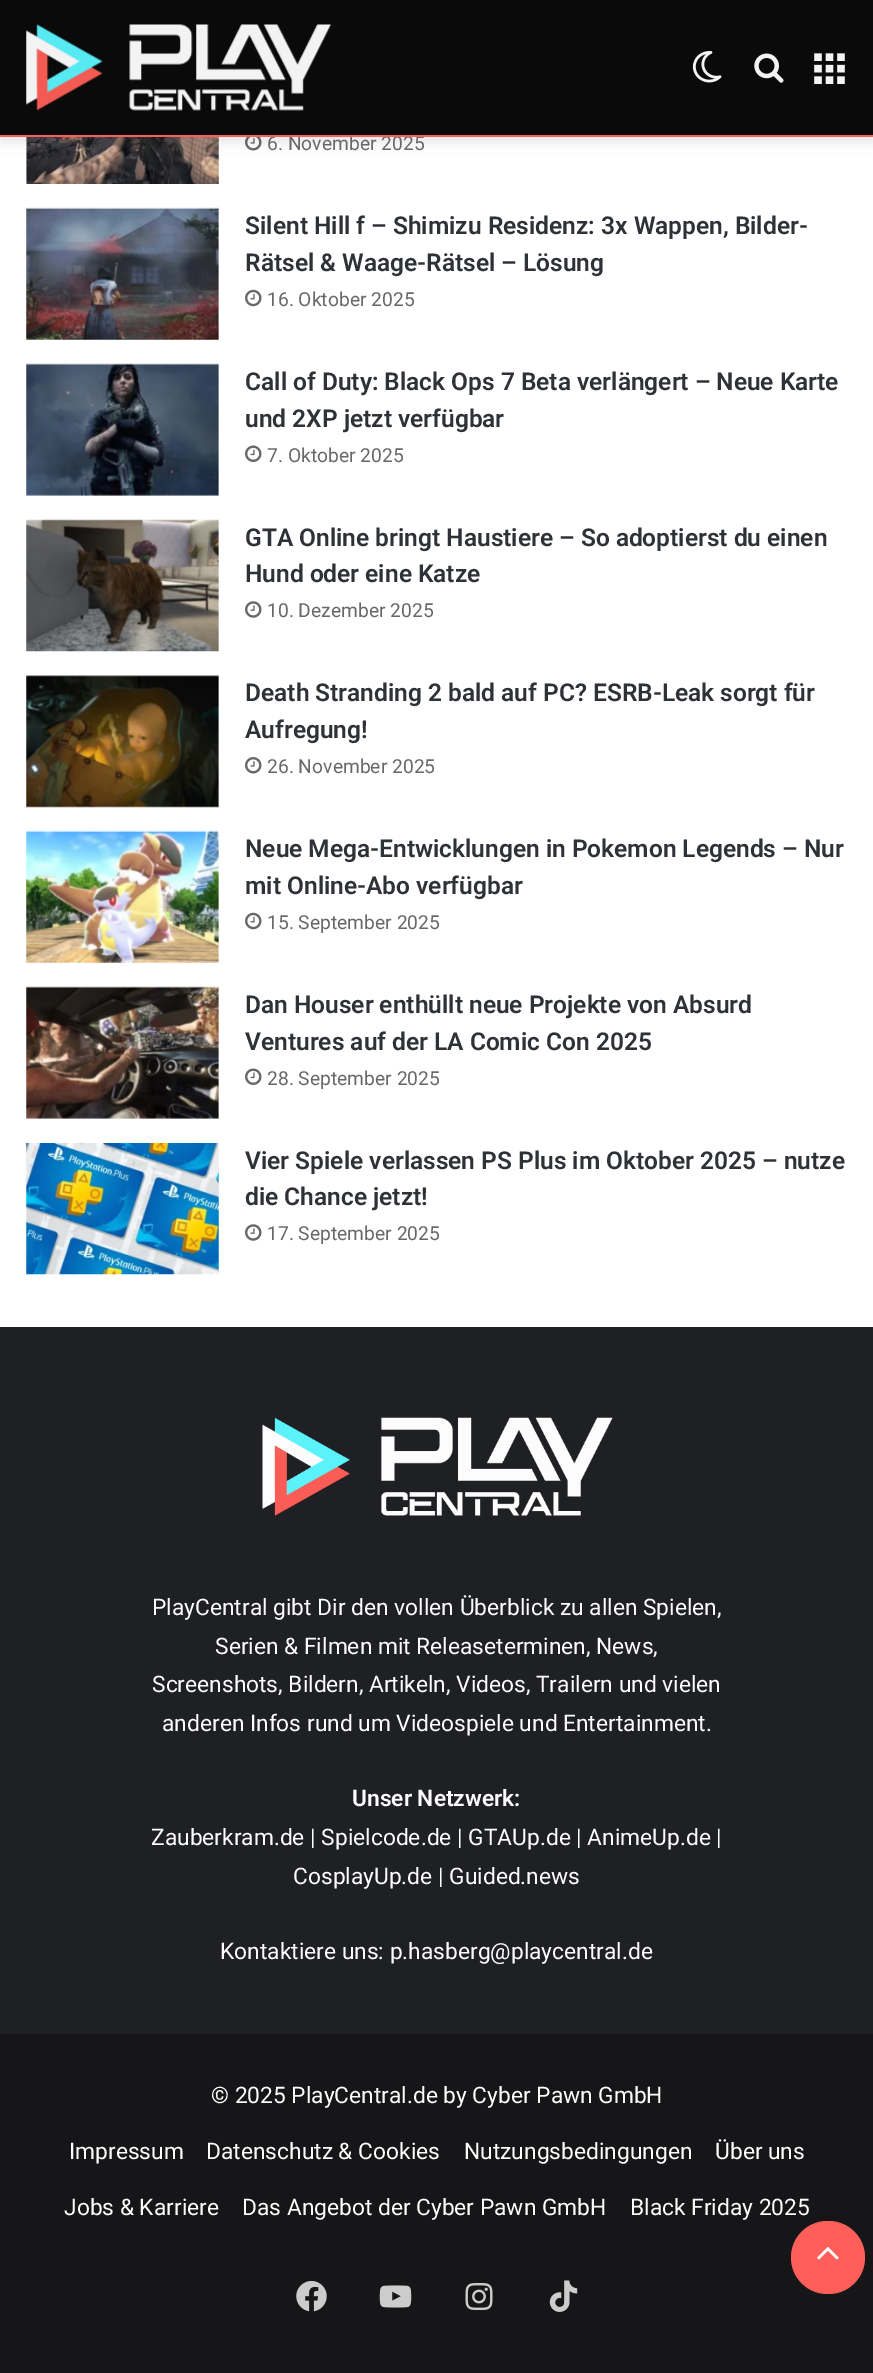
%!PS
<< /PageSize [873 2373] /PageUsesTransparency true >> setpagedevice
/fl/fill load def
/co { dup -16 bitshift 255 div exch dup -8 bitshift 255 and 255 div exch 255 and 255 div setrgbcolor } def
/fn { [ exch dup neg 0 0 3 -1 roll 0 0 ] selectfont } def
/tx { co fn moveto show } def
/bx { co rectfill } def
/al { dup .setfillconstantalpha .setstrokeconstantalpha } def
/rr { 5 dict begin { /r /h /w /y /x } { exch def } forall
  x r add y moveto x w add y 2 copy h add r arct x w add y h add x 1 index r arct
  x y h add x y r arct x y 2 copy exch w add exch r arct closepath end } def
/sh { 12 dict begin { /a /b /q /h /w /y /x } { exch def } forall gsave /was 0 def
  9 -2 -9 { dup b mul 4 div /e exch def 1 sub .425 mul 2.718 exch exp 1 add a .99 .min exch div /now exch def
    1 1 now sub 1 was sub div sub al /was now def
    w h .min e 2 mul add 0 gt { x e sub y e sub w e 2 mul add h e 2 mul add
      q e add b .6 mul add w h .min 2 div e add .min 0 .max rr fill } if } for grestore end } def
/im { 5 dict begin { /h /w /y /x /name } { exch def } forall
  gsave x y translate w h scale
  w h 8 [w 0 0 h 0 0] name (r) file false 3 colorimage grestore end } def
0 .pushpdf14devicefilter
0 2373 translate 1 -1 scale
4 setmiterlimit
0 0 873 2373 16#FFFFFF bx
(media/5.raw) 26 137 193 47 im
(media/6.raw) 245 137 17 14 im
16#000000 co
0 5 873 137 0 6 .1 sh
0 0 873 135 16#0A0A0A bx
(media/1.raw) 26 24 306 87 im
(media/2.raw) 692 51 30 32 im
(media/3.raw) 754 53 30 30 im
(media/4.raw) 814 53 31 31 im
(media/7.raw) 26 207 193 133 im
(media/8.raw) 245 289 17 18 im
(media/9.raw) 26 363 193 133 im
(media/10.raw) 245 445 17 17 im
(media/11.raw) 26 519 193 133 im
(media/12.raw) 245 601 17 17 im
(media/13.raw) 26 675 193 133 im
(media/14.raw) 245 757 17 17 im
(media/15.raw) 26 830 193 133 im
(media/8.raw) 245 912 17 18 im
(media/16.raw) 26 986 193 133 im
(media/10.raw) 245 1068 17 17 im
(media/17.raw) 26 1143 193 132 im
(media/12.raw) 245 1224 17 17 im
0 1327 873 707 16#1F2024 bx
(media/18.raw) 262 1417 351 99 im
0 2034 873 339 16#161619 bx
(media/19.raw) 296 2281 31 31 im
(media/20.raw) 379 2285 33 23 im
(media/21.raw) 465 2283 28 27 im
(media/22.raw) 549 2280 29 32 im
16#FF5E59 co
791 2221 74 73 36.5 rr fl
(media/23.raw) 817 2247 22 13 im
(6. November 2025) 267 150 /Roboto-Regular 19.25 16#686868 tx
0 135 873 2 16#FF5E59 bx
(Silent Hill f – Shimizu Residenz: 3x Wappen, Bilder-) 245 234 /Roboto-SemiBold 24.5 16#2E3136 tx
(Rätsel & Waage-Rätsel – Lösung) 245 271 /Roboto-SemiBold 24.5 16#2E3136 tx
(16. Oktober 2025) 267 306 /Roboto-Regular 19.25 16#686868 tx
(Call of Duty: Black Ops 7 Beta verlängert – Neue Karte) 245 390 /Roboto-SemiBold 24.5 16#2E3136 tx
(und 2XP jetzt verfügbar) 245 427 /Roboto-SemiBold 24.5 16#2E3136 tx
(7. Oktober 2025) 267 462 /Roboto-Regular 19.25 16#686868 tx
(GTA Online bringt Haustiere – So adoptierst du einen) 245 546 /Roboto-SemiBold 24.5 16#2E3136 tx
(Hund oder eine Katze) 245 582 /Roboto-SemiBold 24.5 16#2E3136 tx
(10. Dezember 2025) 267 617 /Roboto-Regular 19.25 16#686868 tx
(Death Stranding 2 bald auf PC? ESRB-Leak sorgt für) 245 701 /Roboto-SemiBold 24.5 16#2E3136 tx
(Aufregung!) 245 738 /Roboto-SemiBold 24.5 16#2E3136 tx
(26. November 2025) 267 773 /Roboto-Regular 19.25 16#686868 tx
(Neue Mega-Entwicklungen in Pokemon Legends – Nur) 245 857 /Roboto-SemiBold 24.5 16#2E3136 tx
(mit Online-Abo verfügbar) 245 894 /Roboto-SemiBold 24.5 16#2E3136 tx
(15. September 2025) 267 929 /Roboto-Regular 19.25 16#686868 tx
(Dan Houser enthüllt neue Projekte von Absurd) 245 1013 /Roboto-SemiBold 24.5 16#2E3136 tx
(Ventures auf der LA Comic Con 2025) 245 1050 /Roboto-SemiBold 24.5 16#2E3136 tx
(28. September 2025) 267 1085 /Roboto-Regular 19.25 16#686868 tx
(Vier Spiele verlassen PS Plus im Oktober 2025 – nutze) 245 1169 /Roboto-SemiBold 24.5 16#2E3136 tx
(die Chance jetzt!) 245 1205 /Roboto-SemiBold 24.5 16#2E3136 tx
(17. September 2025) 267 1240 /Roboto-Regular 19.25 16#686868 tx
(PlayCentral gibt Dir den vollen Überblick zu allen Spielen,) 152 1615 /Roboto-Regular 22.75 16#FDFDFD tx
(Serien & Filmen mit Releaseterminen, News,) 215 1654 /Roboto-Regular 22.75 16#FDFDFD tx
(Screenshots, Bildern, Artikeln, Videos, Trailern und vielen) 152 1692 /Roboto-Regular 22.75 16#FDFDFD tx
(anderen Infos rund um Videospiele und Entertainment.) 162 1731 /Roboto-Regular 22.75 16#FDFDFD tx
(Unser Netzwerk:) 352 1806 /Roboto-SemiBold 22.75 16#FDFDFD tx
(Zauberkram.de | Spielcode.de | GTAUp.de | AnimeUp.de |) 151 1845 /Roboto-Regular 22.75 16#FDFDFD tx
(CosplayUp.de | Guided.news) 293 1884 /Roboto-Regular 22.75 16#FDFDFD tx
(Kontaktiere uns: p.hasberg@playcentral.de) 220 1959 /Roboto-Regular 22.75 16#FDFDFD tx
(© 2025 PlayCentral.de by Cyber Pawn GmbH) 211 2103 /Roboto-Regular 22.75 16#FDFDFD tx
(Impressum) 69 2159 /Roboto-Regular 22.75 16#FDFDFD tx
(Datenschutz & Cookies) 206 2159 /Roboto-Regular 22.75 16#FDFDFD tx
(Nutzungsbedingungen) 464 2159 /Roboto-Regular 22.75 16#FDFDFD tx
(Über uns) 715 2159 /Roboto-Regular 22.75 16#FDFDFD tx
(Jobs & Karriere) 64 2215 /Roboto-Regular 22.75 16#FDFDFD tx
(Das Angebot der Cyber Pawn GmbH) 242 2215 /Roboto-Regular 22.75 16#FDFDFD tx
(Black Friday 2025) 630 2215 /Roboto-Regular 22.75 16#FDFDFD tx
.poppdf14devicefilter showpage
